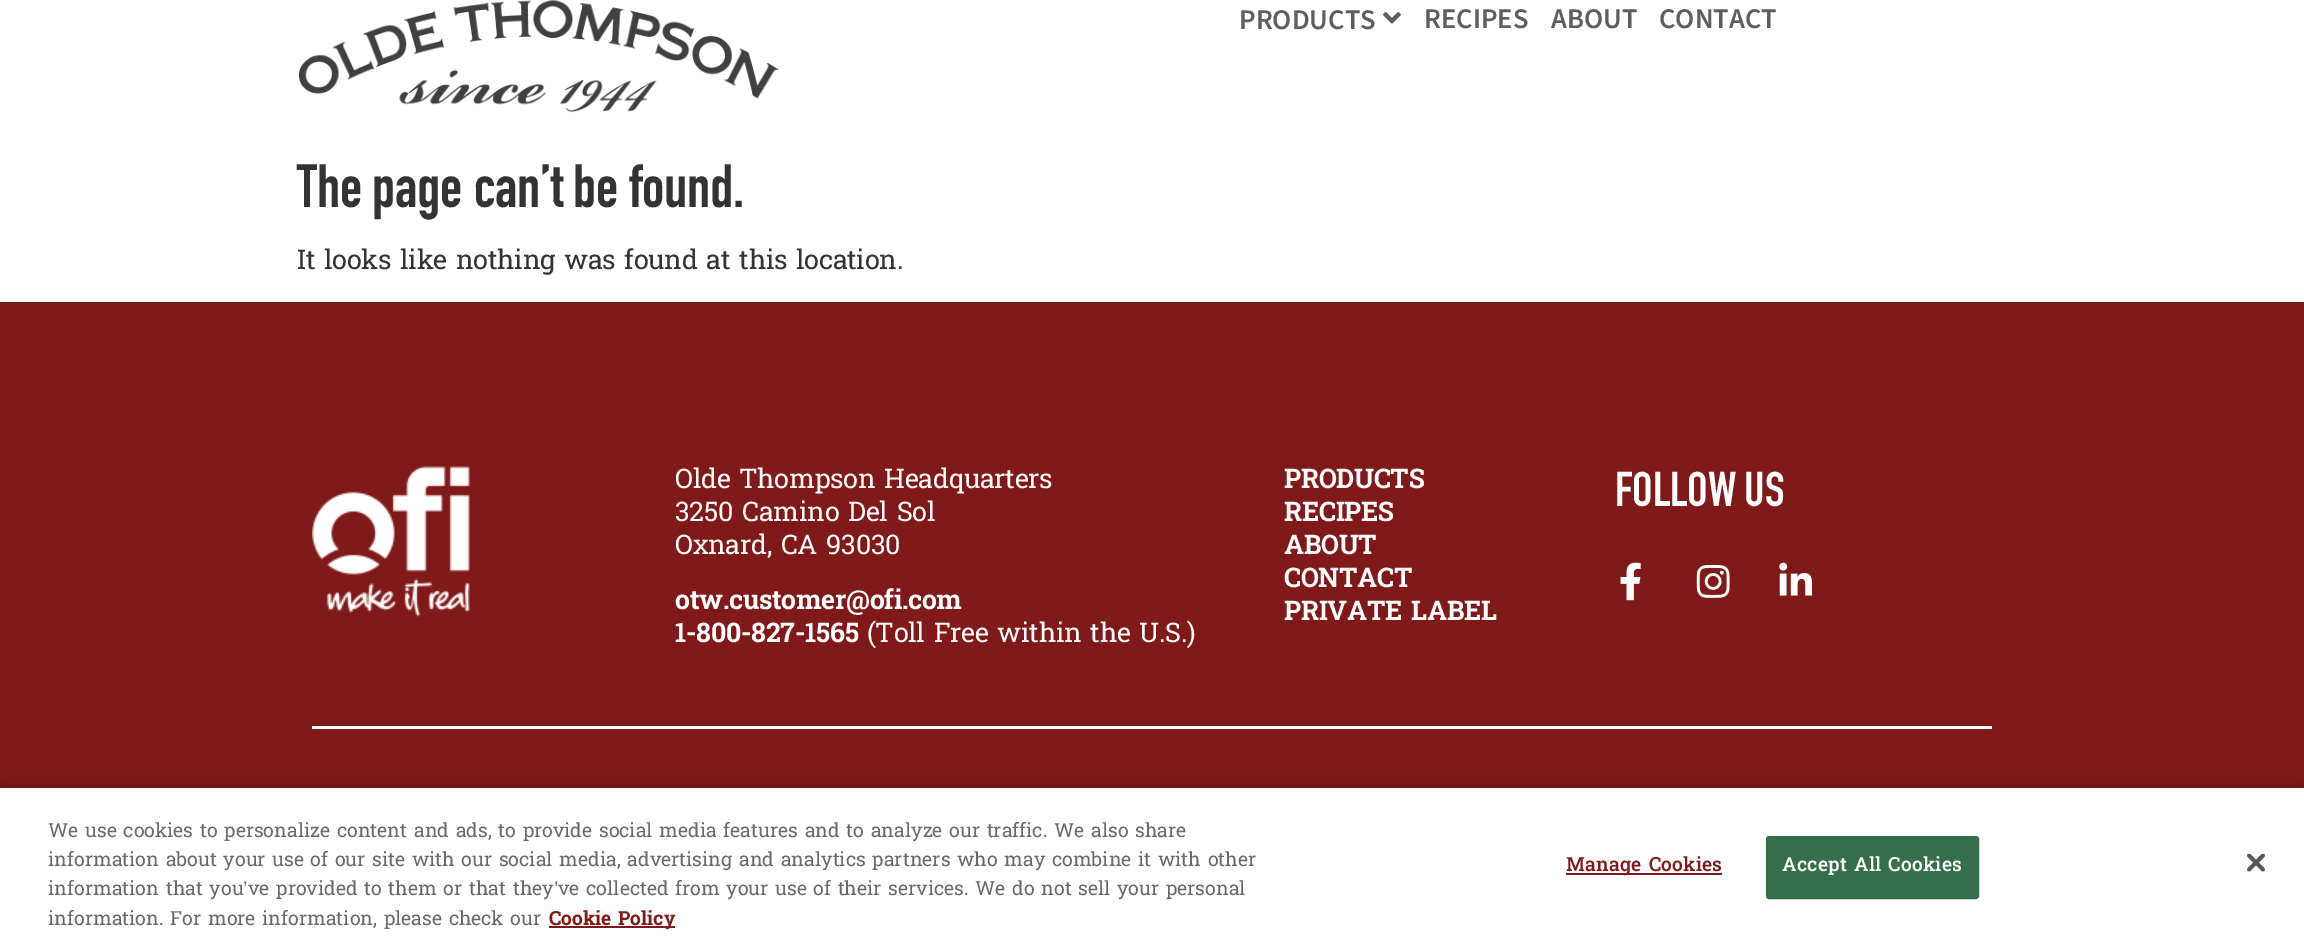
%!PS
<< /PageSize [2304 949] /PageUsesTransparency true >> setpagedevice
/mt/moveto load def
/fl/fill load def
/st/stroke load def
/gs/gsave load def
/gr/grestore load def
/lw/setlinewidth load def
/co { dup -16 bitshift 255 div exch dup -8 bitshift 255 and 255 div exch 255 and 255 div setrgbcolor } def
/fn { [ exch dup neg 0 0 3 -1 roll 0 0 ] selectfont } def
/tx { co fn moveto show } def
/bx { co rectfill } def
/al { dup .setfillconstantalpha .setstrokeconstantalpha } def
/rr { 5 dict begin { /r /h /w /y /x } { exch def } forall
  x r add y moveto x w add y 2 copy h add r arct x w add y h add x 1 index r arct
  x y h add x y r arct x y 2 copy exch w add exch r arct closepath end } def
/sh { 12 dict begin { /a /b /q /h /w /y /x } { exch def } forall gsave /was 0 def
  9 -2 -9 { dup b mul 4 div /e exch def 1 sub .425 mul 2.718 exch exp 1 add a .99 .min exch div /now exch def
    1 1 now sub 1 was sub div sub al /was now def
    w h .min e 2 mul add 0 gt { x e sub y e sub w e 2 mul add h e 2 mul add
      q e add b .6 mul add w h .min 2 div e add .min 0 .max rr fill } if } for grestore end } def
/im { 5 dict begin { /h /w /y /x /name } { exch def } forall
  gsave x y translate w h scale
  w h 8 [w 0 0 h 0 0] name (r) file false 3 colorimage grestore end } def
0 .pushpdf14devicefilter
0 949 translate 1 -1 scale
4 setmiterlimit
0 0 2304 949 16#FFFFFF bx
(media/1.raw) 299 0 480 113 im
(media/2.raw) 1383 12 18 12 im
0 302 2304 486 16#801919 bx
(media/3.raw) 312 466 158 151 im
(media/4.raw) 1620 562 21 39 im
(media/5.raw) 1696 564 34 34 im
(media/6.raw) 1779 562 34 34 im
312 726 1680 3 16#FFFFFF bx
16#000000 co
0 788 2304 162 0 13.5 .2 sh
0 788 2304 161 16#FFFFFF bx
549 926 126 2 16#801919 bx
1566 873 156 2 16#801919 bx
16#346E4A co
1767 837 211 61 2 rr gs fl gr
2 lw
st
(media/7.raw) 2247 854 18 18 im
(PRODUCTS) 1239 29 /SourceSans3-SemiBold 28.5 16#5E5E5E tx
(RECIPES) 1424 28 /SourceSans3-SemiBold 28.5 16#5E5E5E tx
(ABOUT) 1551 28 /SourceSans3-SemiBold 28.5 16#5E5E5E tx
(CONTACT) 1659 28 /SourceSans3-SemiBold 28.5 16#5E5E5E tx
/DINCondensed-Bold 60 fn
16#333333 co
297 207 mt -.3 0 (The page can’t be found.) ashow
/Hanuman-Regular 27 fn
297 269 mt -.3 0 (It looks like nothing was found at this location.) ashow
16#FFFFFF co
675 488 mt -.3 0 (Olde Thompson Headquarters) ashow
675 521 mt -.3 0 (3250 Camino Del Sol) ashow
675 554 mt -.3 0 (Oxnard, CA 93030) ashow
/Hanuman-Bold 27 fn
675 609 mt -.3 0 (otw.customer@ofi.com) ashow
675 642 mt -.3 0 (1-800-827-1565) ashow
/Hanuman-Regular 27 fn
867 642 mt -.3 0 (\(Toll Free within the U.S.\)) ashow
/Hanuman-Bold 27 fn
1284 488 mt -.3 0 (PRODUCTS) ashow
1284 521 mt -.3 0 (RECIPES) ashow
1284 554 mt -.3 0 (ABOUT) ashow
1284 587 mt -.3 0 (CONTACT) ashow
1284 620 mt -.3 0 (PRIVATE LABEL) ashow
/DINCondensed-Bold 48 fn
1615 506 mt -.3 0 (FOLLOW US) ashow
(We use cookies to personalize content and ads, to provide social media features and to analyze our traffic. We also share) 48 837 /Hanuman-Regular 19.5 16#696969 tx
(information about your use of our site with our social media, advertising and analytics partners who may combine it with other) 48 866 /Hanuman-Regular 19.5 16#696969 tx
(information that you) 48 895 /Hanuman-Regular 19.5 16#696969 tx
(’) 243 895 /LiberationSans-Regular 19.5 16#696969 tx
(ve provided to them or that they) 248 895 /Hanuman-Regular 19.5 16#696969 tx
(’) 554 895 /LiberationSans-Regular 19.5 16#696969 tx
(ve collected from your use of their services. We do not sell your personal) 558 895 /Hanuman-Regular 19.5 16#696969 tx
(information. For more information, please check our) 48 925 /Hanuman-Regular 19.5 16#696969 tx
(Cookie Policy) 549 925 /Hanuman-Bold 19.5 16#801919 tx
/Hanuman-SemiBold 19.5 fn
1566 871 mt .25 0 (Manage Cookies) ashow
16#FFFFFF co
1782 871 mt .25 0 (Accept All Cookies) ashow
.poppdf14devicefilter showpage
